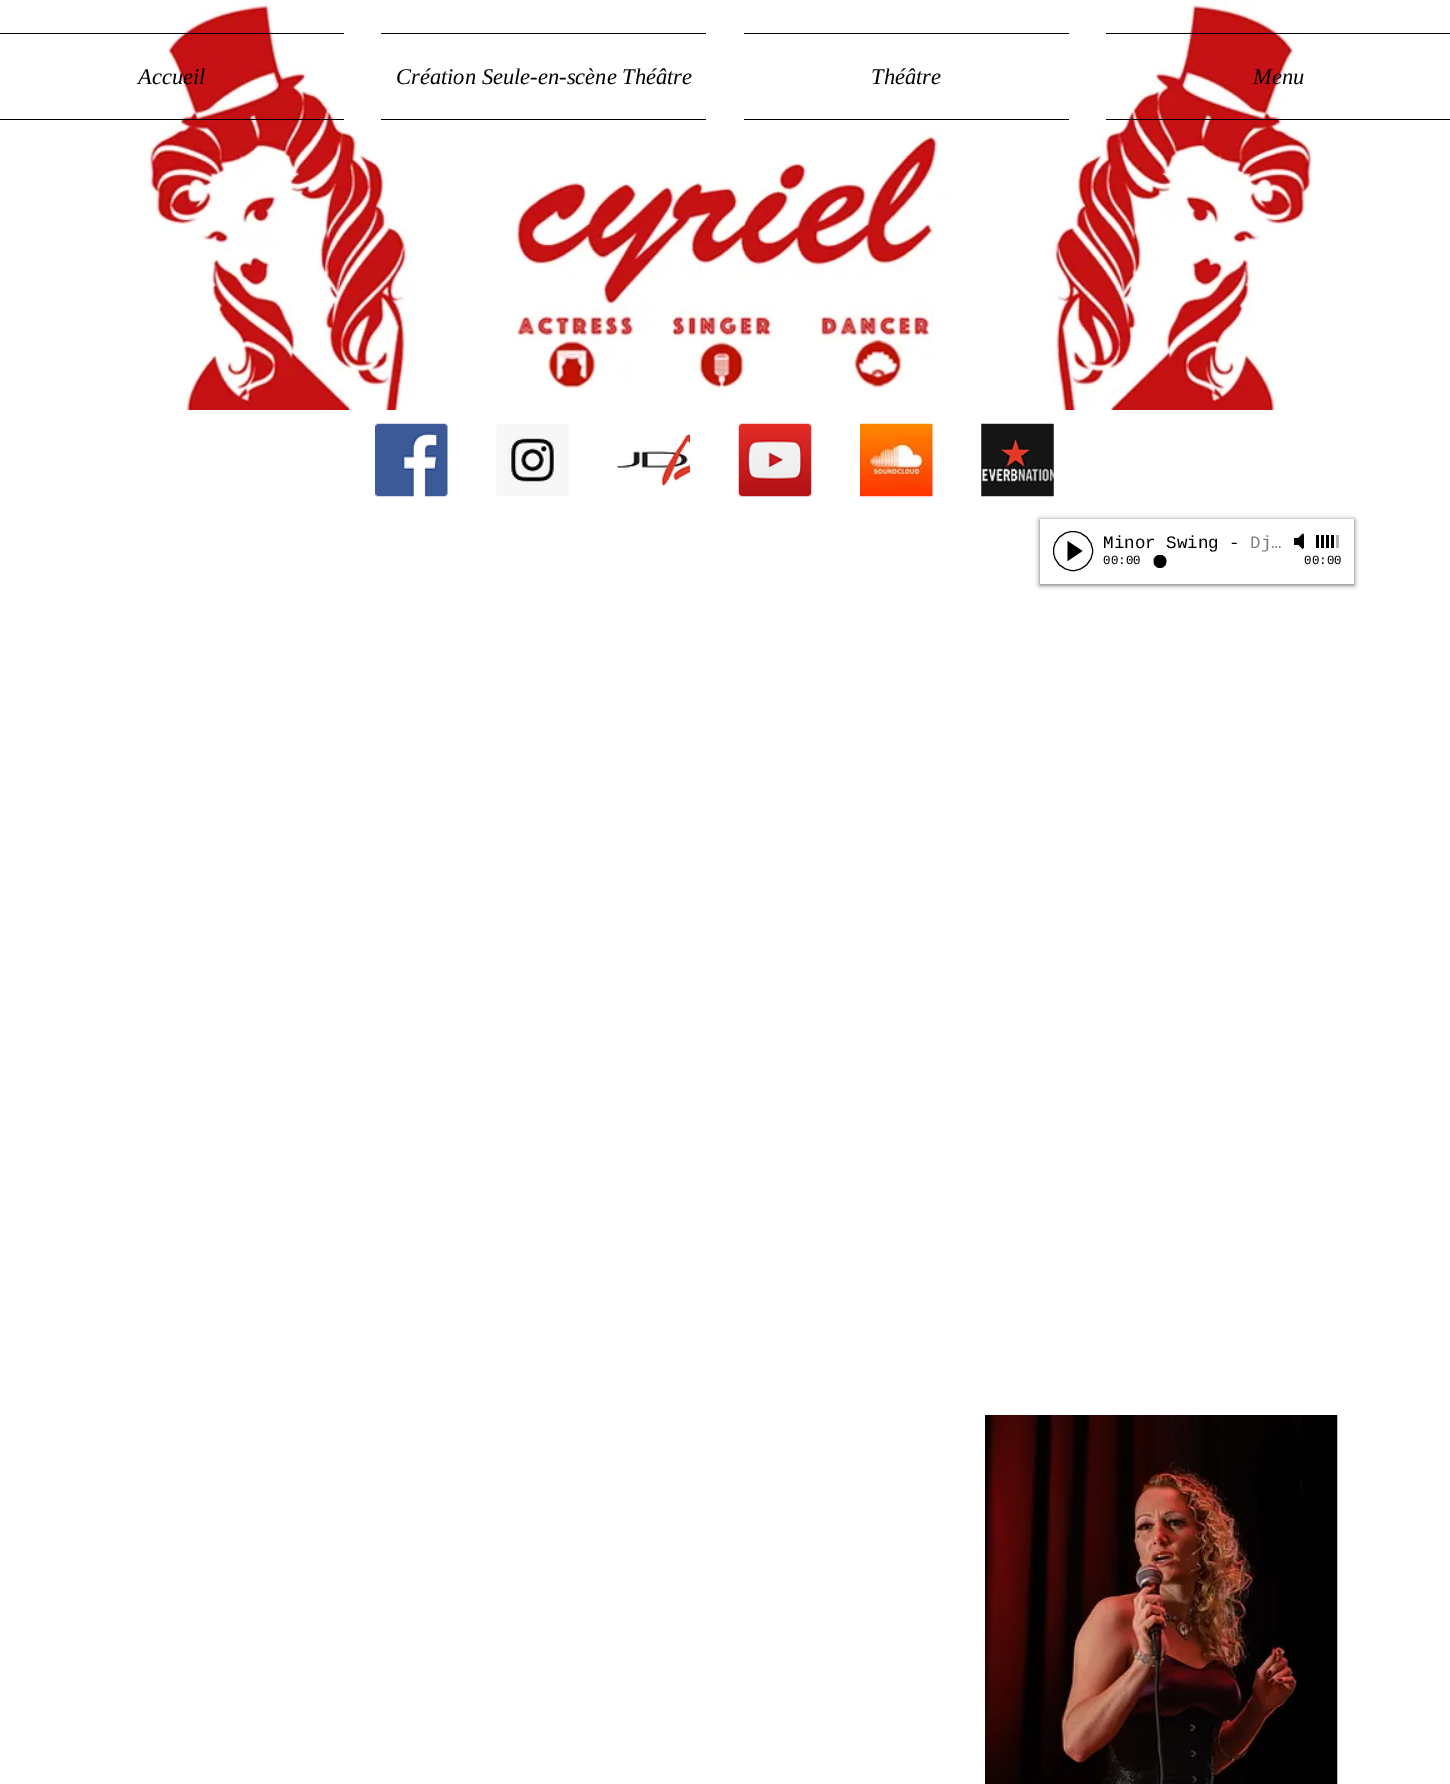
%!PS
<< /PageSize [1450 1784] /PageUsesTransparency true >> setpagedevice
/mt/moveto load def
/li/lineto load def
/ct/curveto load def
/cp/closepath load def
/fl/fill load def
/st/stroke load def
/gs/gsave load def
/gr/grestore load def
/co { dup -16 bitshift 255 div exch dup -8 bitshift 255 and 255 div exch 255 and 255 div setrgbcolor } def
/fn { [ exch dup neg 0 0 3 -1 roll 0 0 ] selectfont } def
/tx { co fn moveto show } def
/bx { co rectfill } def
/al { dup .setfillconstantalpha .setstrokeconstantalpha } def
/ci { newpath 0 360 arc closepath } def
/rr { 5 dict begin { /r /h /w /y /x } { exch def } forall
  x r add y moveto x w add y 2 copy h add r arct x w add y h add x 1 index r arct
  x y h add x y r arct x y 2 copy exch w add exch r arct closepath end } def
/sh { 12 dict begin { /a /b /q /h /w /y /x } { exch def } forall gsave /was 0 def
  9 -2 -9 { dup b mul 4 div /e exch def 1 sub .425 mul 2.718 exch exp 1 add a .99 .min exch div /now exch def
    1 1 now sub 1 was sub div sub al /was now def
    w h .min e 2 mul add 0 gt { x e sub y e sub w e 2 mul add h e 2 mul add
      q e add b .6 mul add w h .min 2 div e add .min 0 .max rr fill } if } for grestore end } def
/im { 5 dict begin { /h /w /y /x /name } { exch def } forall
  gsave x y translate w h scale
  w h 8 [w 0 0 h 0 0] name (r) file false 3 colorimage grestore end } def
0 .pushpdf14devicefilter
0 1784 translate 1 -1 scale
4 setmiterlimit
0 0 1450 1784 16#FFFFFF bx
(media/1.raw) 142 0 1171 410 im
0 33 344 1 16#000000 bx
0 119 344 1 16#000000 bx
381 33 325 1 16#000000 bx
381 119 325 1 16#000000 bx
744 33 325 1 16#000000 bx
744 119 325 1 16#000000 bx
1106 33 344 1 16#000000 bx
1106 119 344 1 16#000000 bx
(media/2.raw) 375 423 73 74 im
(media/3.raw) 496 424 73 72 im
(media/4.raw) 617 433 73 54 im
(media/5.raw) 738 423 74 74 im
(media/6.raw) 860 423 73 74 im
(media/7.raw) 981 423 73 74 im
(media/9.raw) 1153 555 14 13 im
(media/10.raw) 1153 555 14 13 im
gs
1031 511 mt 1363 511 li 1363 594 li 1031 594 li cp 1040 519 mt 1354 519 li 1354 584 li 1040 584 li cp eoclip newpath
1040 520 314 65 0 2.5 .6 sh
gr
1073 551 19.5 ci st
1067.5 561 mt 1067.5 541 li 1082.5 551 li cp fl
1304 547.5 mt 1302.5 549 li 1295 541 li 1303 533.5 li 1304 535 li cp fl
1294 538 5 7 16#000000 bx
1316 535 3 13 16#000000 bx
1321 535 3 13 16#000000 bx
1326 535 3 13 16#000000 bx
1331 535 3 13 16#000000 bx
1336 535 3 13 16#B3B3B3 bx
0.09 al
16#FFFFFF co
1154 562 mt 1153 568 1169 565 1178 565 ct 1286 565 li 1287 564 li 1288 563 1288 562 1288 561 ct 1288 562 1287 563 1286 564 ct 1157 564 li 1155 564 1154 563 1154 562 ct cp fl
1 al
16#000000 co
1154 555 12 13 6 rr fl
(media/8.raw) 985 1415 353 369 im
(Accueil) 138 84 /LiberationSerif-Italic 22.5 16#000000 tx
(Création Seule-en-scène Théâtre) 396 84 /LiberationSerif-Italic 22.5 16#000000 tx
(Théâtre) 871 84 /LiberationSerif-Italic 22.5 16#000000 tx
(Menu) 1253 84 /LiberationSerif-Italic 22.5 16#000000 tx
(Minor Swing -) 1103 548 /LiberationMono-Regular 17.5 16#000000 tx
(Dj…) 1250 548 /LiberationMono-Regular 17.5 16#808080 tx
(00:00) 1103 564 /LiberationMono-Regular 12.5 16#000000 tx
(00:00) 1304 564 /LiberationMono-Regular 12.5 16#000000 tx
.poppdf14devicefilter showpage
